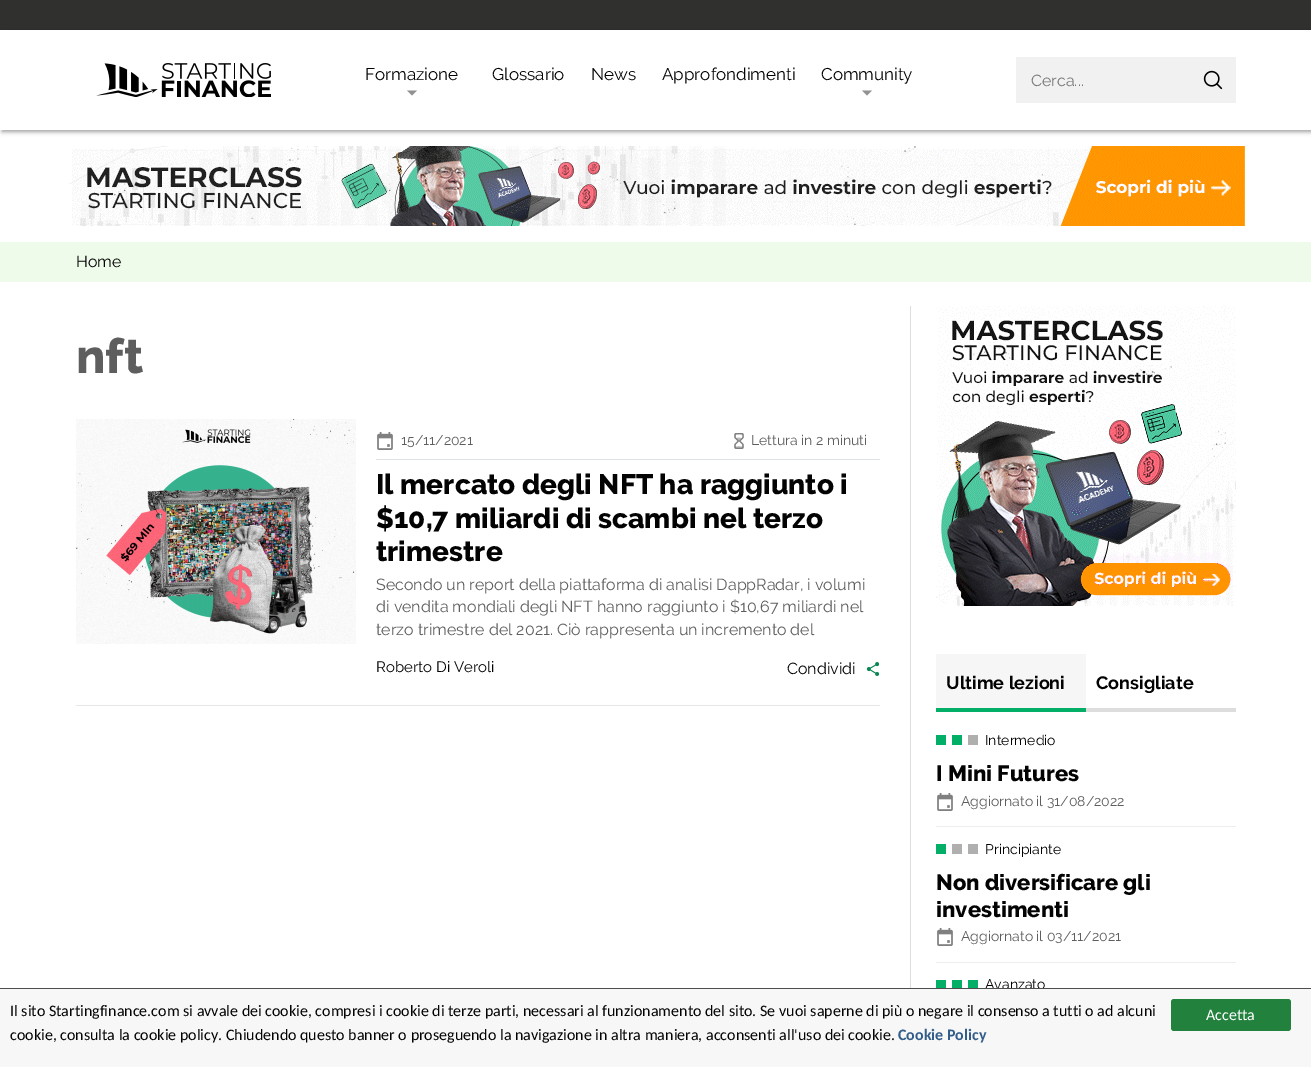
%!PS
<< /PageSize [1311 1067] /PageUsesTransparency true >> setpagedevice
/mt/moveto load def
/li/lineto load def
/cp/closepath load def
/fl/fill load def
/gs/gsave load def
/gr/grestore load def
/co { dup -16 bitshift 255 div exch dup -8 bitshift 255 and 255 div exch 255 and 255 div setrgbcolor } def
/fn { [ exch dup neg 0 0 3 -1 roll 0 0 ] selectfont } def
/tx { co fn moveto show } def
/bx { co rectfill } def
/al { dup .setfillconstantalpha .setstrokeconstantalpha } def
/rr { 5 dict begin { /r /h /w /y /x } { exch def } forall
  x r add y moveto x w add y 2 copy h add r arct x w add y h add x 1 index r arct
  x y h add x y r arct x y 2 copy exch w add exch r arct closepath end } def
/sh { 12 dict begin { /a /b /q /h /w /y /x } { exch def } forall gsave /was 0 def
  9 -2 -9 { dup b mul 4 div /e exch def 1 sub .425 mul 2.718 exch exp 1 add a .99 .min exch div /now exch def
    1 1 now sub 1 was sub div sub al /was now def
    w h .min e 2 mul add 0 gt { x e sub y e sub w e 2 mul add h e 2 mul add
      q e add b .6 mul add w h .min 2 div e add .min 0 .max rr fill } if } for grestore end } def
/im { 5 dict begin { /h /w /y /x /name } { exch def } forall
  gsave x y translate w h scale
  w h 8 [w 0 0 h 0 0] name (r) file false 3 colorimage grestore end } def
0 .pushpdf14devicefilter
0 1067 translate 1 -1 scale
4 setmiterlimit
0 0 1311 1067 16#FFFFFF bx
0 0 1311 30 16#30302F bx
gs
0 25 mt 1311 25 li 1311 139 li 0 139 li cp 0 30 mt 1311 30 li 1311 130 li 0 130 li cp eoclip newpath
16#000000 co
2 32 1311 100 0 2 .35 sh
gr
(media/1.raw) 96 63 175 34 im
16#929292 co
417 90.5 mt 407 90.5 li 412 95.5 li cp eofill
872 90.5 mt 862 90.5 li 867 95.5 li cp eofill
1016 57 220 46 16#F1F1F1 bx
(media/2.raw) 1203 70 20 20 im
(media/3.raw) 69 146 1176 80 im
0 242 1311 40 16#EFFBEA bx
910 306 1 682 16#DDDDDD bx
(media/4.raw) 76 419 280 225 im
376 459 504 1 16#DEE2E6 bx
(media/5.raw) 377 432 16 18 im
(media/6.raw) 734 433 10 16 im
(media/7.raw) 866 662 14 14 im
76 705 804 1 16#E6E6E6 bx
(media/8.raw) 936 306 300 300 im
936 654 150 54 16#F6F6F6 bx
936 708 150 4 16#03AF67 bx
1086 708 150 4 16#DDDDDD bx
936 826 300 1 16#EEEEEE bx
936 735 10 10 16#03AF67 bx
952 735 10 10 16#03AF67 bx
968 735 10 10 16#AFAFAF bx
(media/5.raw) 937 793 16 18 im
936 962 300 1 16#EEEEEE bx
936 844 10 10 16#03AF67 bx
952 844 10 10 16#AFAFAF bx
968 844 10 10 16#AFAFAF bx
(media/5.raw) 937 928 16 18 im
936 980 10 8 16#03AF67 bx
952 980 10 8 16#03AF67 bx
968 980 10 8 16#03AF67 bx
(Formazione) 365 80 /Raleway-Regular 17 16#030303 tx
(Glossario) 492 80 /Raleway-Regular 17 16#030303 tx
(News) 591 80 /Raleway-Regular 17 16#030303 tx
(Approfondimenti) 662 80 /Raleway-Regular 17 16#030303 tx
(Community) 821 80 /Raleway-Regular 17 16#030303 tx
(Cerca...) 1031 86 /Raleway-Regular 16 16#757575 tx
(Home) 76 267 /Raleway-Regular 16 16#030303 tx
(nft) 76 373 /Raleway-ExtraBold 48 16#5E5E5E tx
(15/11/2021) 401 445 /Raleway-Regular 14 16#5E5E5E tx
(Lettura in 2 minuti) 751 445 /Raleway-Regular 14 16#5E5E5E tx
(Il mercato degli NFT ha raggiunto i) 376 494 /Raleway-ExtraBold 28 16#030303 tx
($10,7 miliardi di scambi nel terzo) 376 528 /Raleway-ExtraBold 28 16#030303 tx
(trimestre) 376 561 /Raleway-ExtraBold 28 16#030303 tx
(Secondo un report della piattaforma di analisi DappRadar, i volumi) 376 590 /Raleway-Regular 16 16#5E5E5E tx
(di vendita mondiali degli NFT hanno raggiunto i $10,67 miliardi nel) 376 612 /Raleway-Regular 16 16#5E5E5E tx
(terzo trimestre del 2021. Ciò rappresenta un incremento del) 376 635 /Raleway-Regular 16 16#5E5E5E tx
(Roberto Di Veroli) 376 672 /Raleway-Regular 15 16#030303 tx
(Condividi) 787 674 /Raleway-Regular 16 16#030303 tx
(Ultime lezioni) 946 689 /Raleway-Bold 18 16#030303 tx
(Consigliate) 1096 689 /Raleway-Bold 18 16#030303 tx
(Intermedio) 985 745 /Raleway-Regular 14 16#030303 tx
(I Mini Futures) 936 781 /Raleway-ExtraBold 22 16#030303 tx
(Aggiornato il 31/08/2022) 961 806 /Raleway-Regular 14 16#5E5E5E tx
(Principiante) 985 854 /Raleway-Regular 14 16#030303 tx
(Non diversificare gli) 936 890 /Raleway-ExtraBold 22 16#030303 tx
(investimenti) 936 917 /Raleway-ExtraBold 22 16#030303 tx
(Aggiornato il 03/11/2021) 961 941 /Raleway-Regular 14 16#5E5E5E tx
(Avanzato) 985 989 /Raleway-Regular 14 16#030303 tx
0 989 1311 78 16#F7F7F7 bx
0 988 1311 1 16#4D4D4D bx
(Il sito Startingfinance.com si avvale dei cookie, compresi i cookie di terze parti, necessari al funzionamento del sito. Se vuoi saperne di più o negare il consenso a tutti o ad alcuni) 10 1016 /Carlito-Regular 16 16#030303 tx
(cookie, consulta la cookie policy. Chiudendo questo banner o proseguendo la navigazione in altra maniera, acconsenti all'uso dei cookie.) 10 1040 /Carlito-Regular 16 16#030303 tx
(Cookie Policy) 898 1040 /Carlito-Bold 16 16#325D8A tx
16#22813D co
1171 999 120 32 3 rr fl
(Accetta) 1206 1020 /Carlito-Regular 16 16#FFFFFF tx
.poppdf14devicefilter showpage
